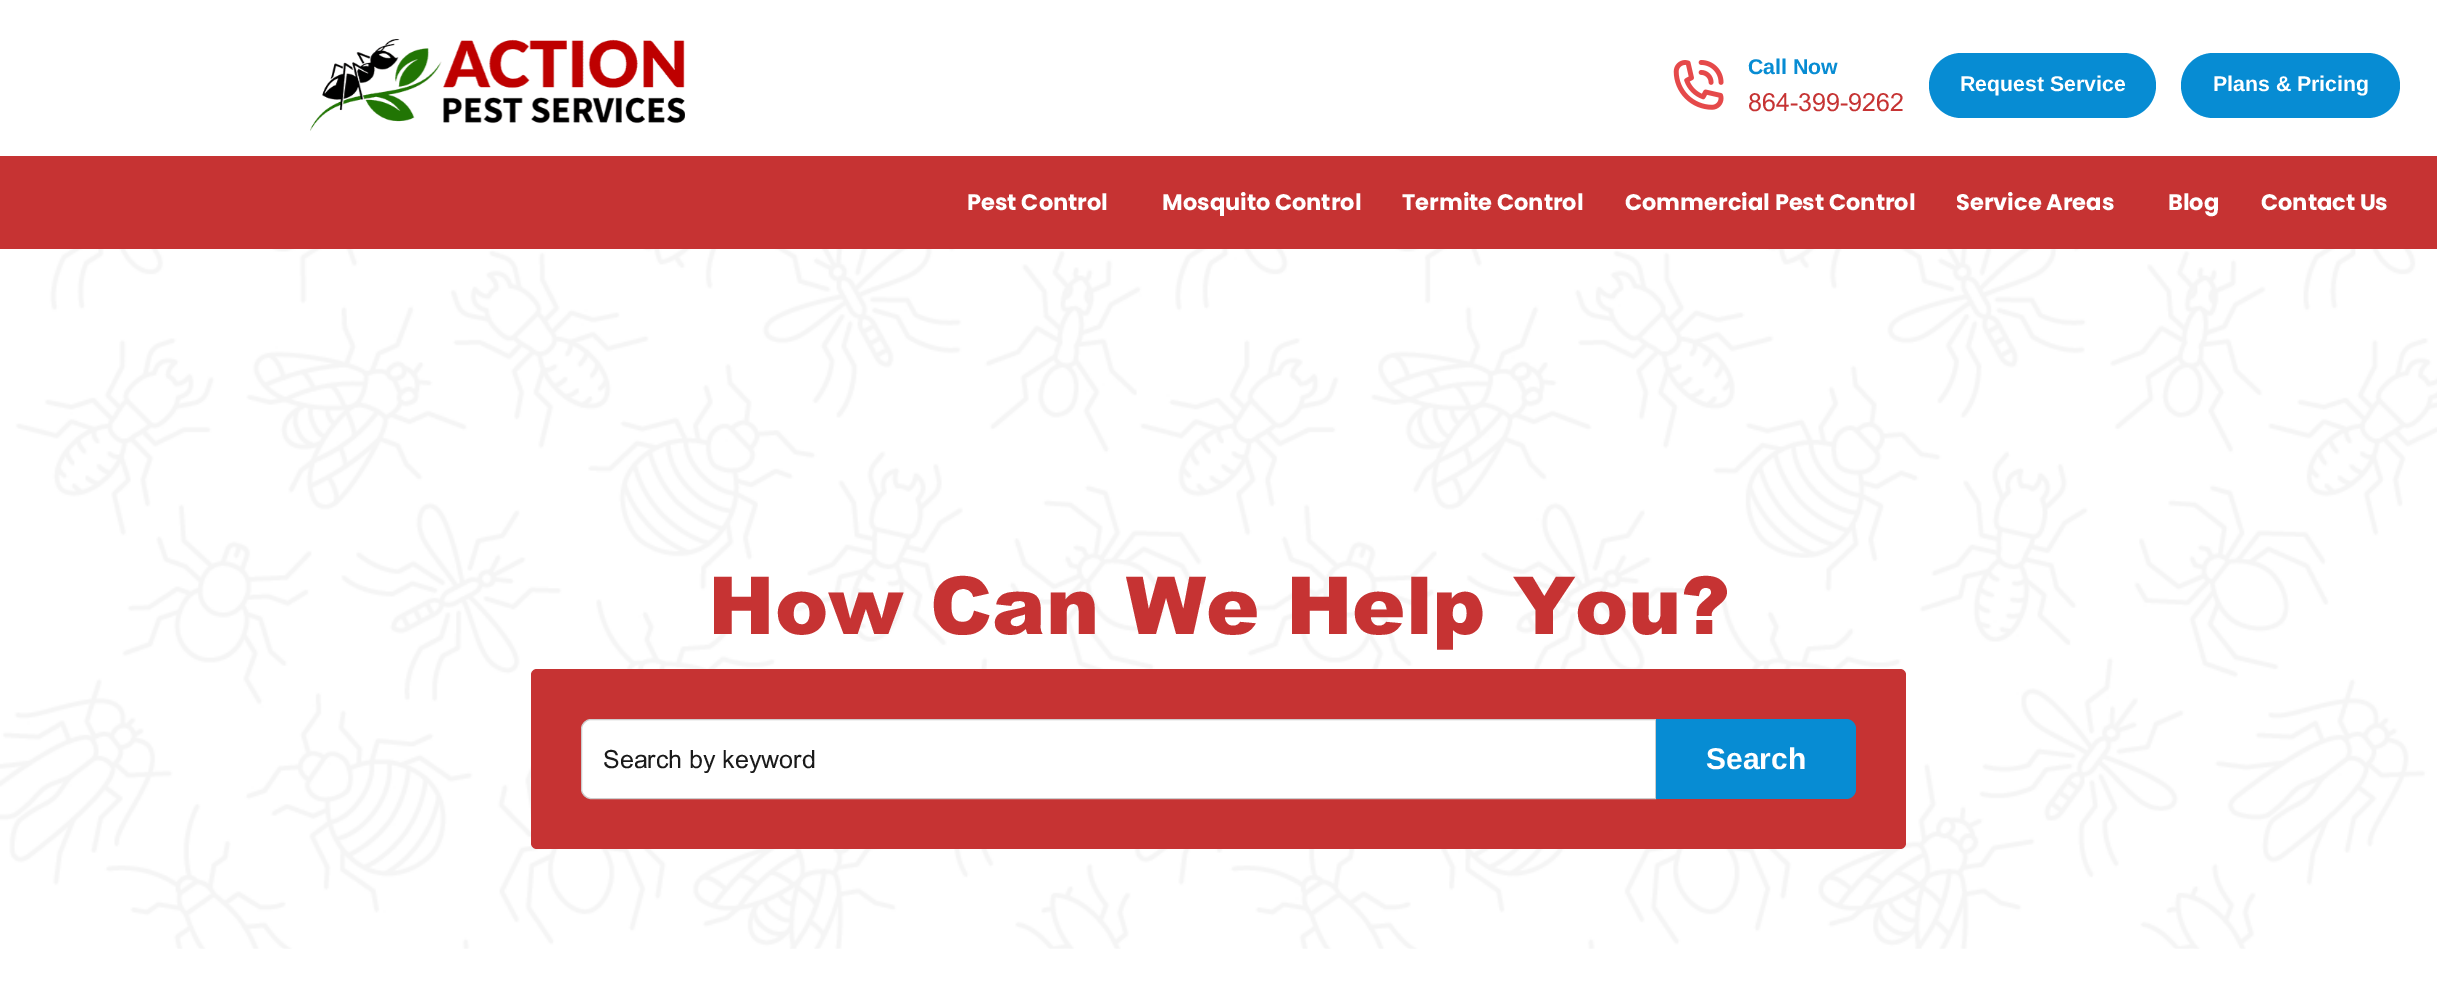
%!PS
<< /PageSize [2437 1006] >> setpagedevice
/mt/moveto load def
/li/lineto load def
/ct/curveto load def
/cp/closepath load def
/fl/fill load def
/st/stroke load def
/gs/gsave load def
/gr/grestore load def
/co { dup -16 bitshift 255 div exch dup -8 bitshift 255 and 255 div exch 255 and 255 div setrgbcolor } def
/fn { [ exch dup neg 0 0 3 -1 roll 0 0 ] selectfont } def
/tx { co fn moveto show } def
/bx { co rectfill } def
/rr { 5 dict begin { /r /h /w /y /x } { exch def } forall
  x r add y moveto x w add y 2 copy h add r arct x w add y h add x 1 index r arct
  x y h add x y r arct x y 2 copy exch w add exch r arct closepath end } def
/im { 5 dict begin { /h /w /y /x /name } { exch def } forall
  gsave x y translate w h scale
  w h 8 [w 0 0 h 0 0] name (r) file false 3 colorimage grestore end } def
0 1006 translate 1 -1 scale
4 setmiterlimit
0 0 2437 1006 16#FFFFFF bx
(media/1.raw) 310 39 375 92 im
(media/2.raw) 1673 60 51 50 im
16#078CD3 co
1929 53 227 65 32.5 rr fl
2181 53 219 65 32.5 rr fl
0 156 2437 93 16#C63333 bx
(media/3.raw) 0 249 2437 700 im
531 669 1375 180 6 rr fl
16#FFFFFF co
591 719.5 mt 1655.5 719.5 li 1655.5 798.5 li 591 798.5 li 586 798.5 581.5 794 581.5 789 ct 581.5 729 li 581.5 724 586 719.5 591 719.5 ct cp gs fl gr
16#CDCDCD co
st
16#078CD3 co
1656 719 mt 1846 719 li 1851.5 719 1856 723.5 1856 729 ct 1856 789 li 1856 794.5 1851.5 799 1846 799 ct 1656 799 li cp fl
(Call Now) 1748 74 /LiberationSans-Bold 21.25 16#078CD3 tx
(864-399-9262) 1748 111 /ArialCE-Medium 25 16#C63333 tx
(Request Service) 1960 91 /LiberationSans-Bold 21.25 16#FFFFFF tx
(Plans & Pricing) 2213 91 /LiberationSans-Bold 21.25 16#FFFFFF tx
(Pest Control) 967 210 /Poppins-Bold 22.5 16#FFFFFF tx
(Mosquito Control) 1162 210 /Poppins-Bold 22.5 16#FFFFFF tx
(Termite Control) 1402 210 /Poppins-Bold 22.5 16#FFFFFF tx
(Commercial Pest Control) 1625 210 /Poppins-Bold 22.5 16#FFFFFF tx
(Service Areas) 1956 210 /Poppins-Bold 22.5 16#FFFFFF tx
(Blog) 2168 210 /Poppins-Bold 22.5 16#FFFFFF tx
(Contact Us) 2261 210 /Poppins-Bold 22.5 16#FFFFFF tx
(How Can We Help You?) 708 634 /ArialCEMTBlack-Black 80 16#C63333 tx
gs
603 745 1017 28 rectclip
(Search by keyword) 603 768 /ArialCE-Medium 25 16#1A1A1A tx
gr
(Search) 1706 769 /LiberationSans-Bold 30 16#FFFFFF tx
showpage
